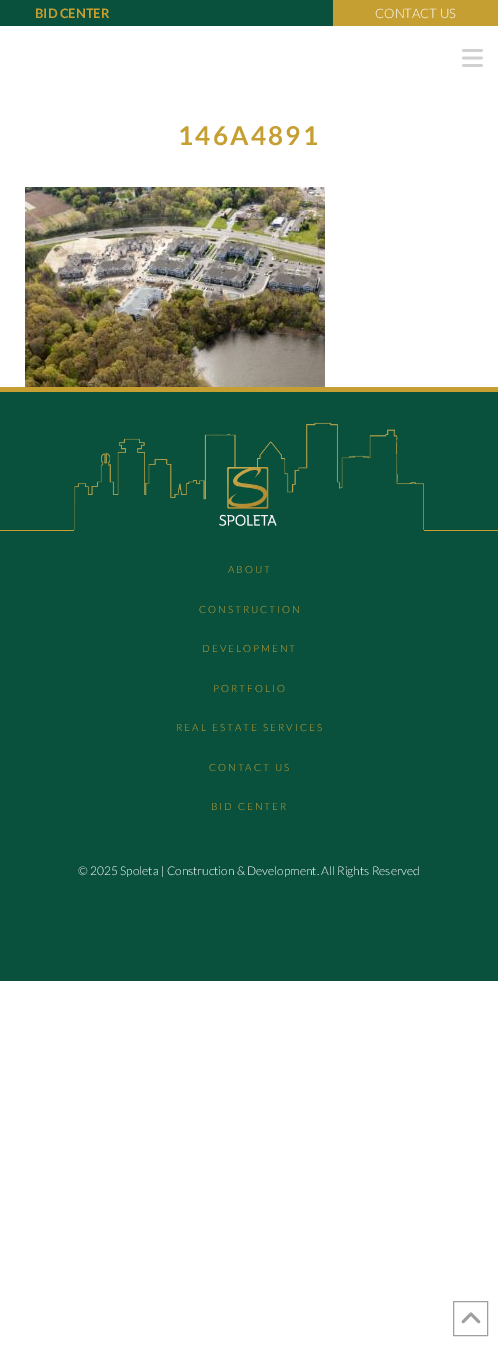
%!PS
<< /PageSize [498 1346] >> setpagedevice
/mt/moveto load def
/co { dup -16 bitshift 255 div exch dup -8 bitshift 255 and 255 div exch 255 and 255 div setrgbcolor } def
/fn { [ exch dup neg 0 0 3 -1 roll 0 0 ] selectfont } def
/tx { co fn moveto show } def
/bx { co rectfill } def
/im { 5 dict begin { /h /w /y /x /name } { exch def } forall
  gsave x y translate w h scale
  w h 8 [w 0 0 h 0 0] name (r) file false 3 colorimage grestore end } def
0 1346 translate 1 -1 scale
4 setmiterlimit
0 0 498 1346 16#FFFFFF bx
0 0 333 26 16#0A513D bx
333 0 165 26 16#C69F32 bx
(media/1.raw) 462 49 21 18 im
(media/2.raw) 25 187 300 200 im
0 392 498 589 16#0A513D bx
0 387 498 5 16#C69F32 bx
0 530 498 1 16#C69F32 bx
(media/3.raw) 74 422 350 109 im
16#9F9F9F co
453.5 1301.5 34 34 rectstroke
(media/4.raw) 461 1312 20 12 im
(BID CENTER) 35 18 /Lato-Bold 13 16#C69F32 tx
(CONTACT US) 375 18 /Lato-Light 13 16#FFFFFF tx
/Lato-Bold 26 fn
16#C69F32 co
178 145 mt 2.25 0 (146A4891) ashow
/Lato-Light 10 fn
228 573 mt 2 0 (ABOUT) ashow
199 613 mt 2 0 (CONSTRUCTION) ashow
202 652 mt 2 0 (DEVELOPMENT) ashow
213 692 mt 2 0 (PORTFOLIO) ashow
176 731 mt 2 0 (REAL ESTATE SERVICES) ashow
209 771 mt 2 0 (CONTACT US) ashow
211 810 mt 2 0 (BID CENTER) ashow
(© 2025 Spoleta | Construction & Development. All Rights Reserved) 78 875 /Lato-Light 12 16#FFFFFF tx
showpage
